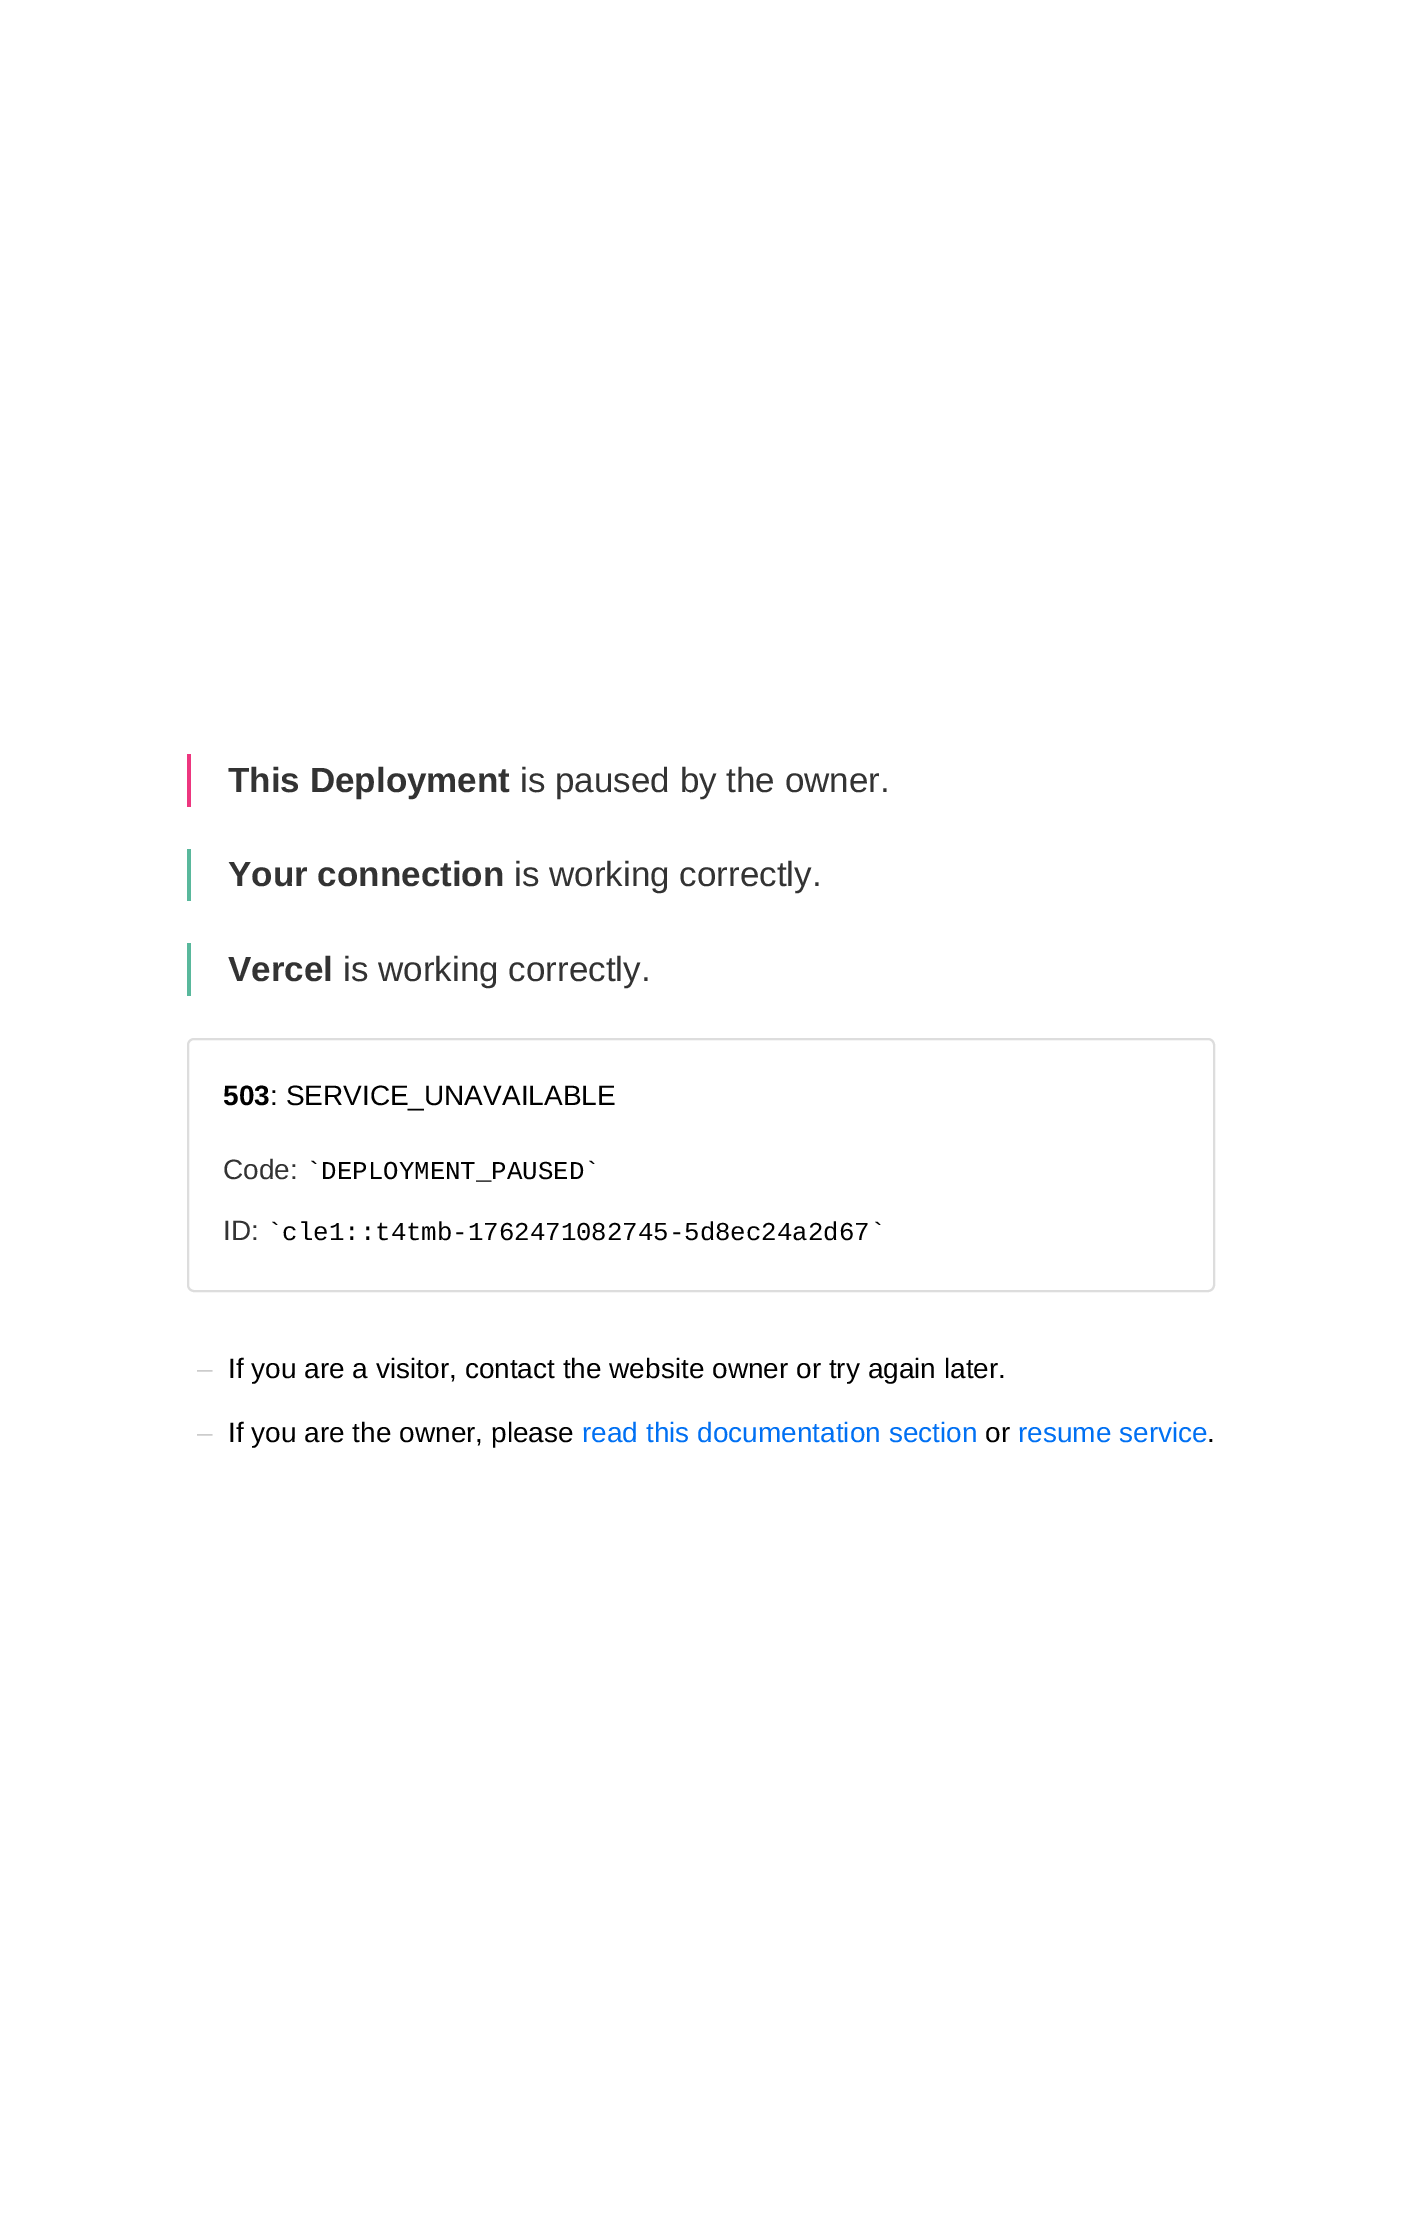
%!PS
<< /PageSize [1401 2231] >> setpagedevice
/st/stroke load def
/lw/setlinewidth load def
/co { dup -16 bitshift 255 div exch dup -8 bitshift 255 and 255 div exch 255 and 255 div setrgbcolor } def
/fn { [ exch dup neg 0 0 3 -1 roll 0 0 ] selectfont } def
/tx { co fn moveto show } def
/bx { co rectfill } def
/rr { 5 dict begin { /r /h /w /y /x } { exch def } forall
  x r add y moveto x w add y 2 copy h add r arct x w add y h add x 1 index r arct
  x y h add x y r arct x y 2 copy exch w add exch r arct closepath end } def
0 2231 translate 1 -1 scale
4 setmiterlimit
0 0 1401 2231 16#FFFFFF bx
187 754 4 53 16#ED367F bx
187 849 4 52 16#59B89C bx
187 943 4 53 16#59B89C bx
16#DDDDDD co
2 lw
188 1039 1026 252 6 rr st
(This Deployment) 228 792 /LiberationSans-Bold 35 16#333333 tx
(is paused by the owner.) 520 792 /LiberationSans-Regular 35 16#333333 tx
(Your connection) 228 886 /LiberationSans-Bold 35 16#333333 tx
(is working correctly.) 514 886 /LiberationSans-Regular 35 16#333333 tx
(Vercel) 228 981 /LiberationSans-Bold 35 16#333333 tx
(is working correctly.) 343 981 /LiberationSans-Regular 35 16#333333 tx
(503) 223 1105 /LiberationSans-Bold 28 16#000000 tx
(: SERVICE_UNAVAILABLE) 270 1105 /LiberationSans-Regular 28 16#000000 tx
(Code:) 223 1179 /LiberationSans-Regular 28 16#333333 tx
(`DEPLOYMENT_PAUSED`) 306 1179 /LiberationMono-Regular 25.75 16#000000 tx
(ID:) 223 1240 /LiberationSans-Regular 28 16#333333 tx
(`cle1::t4tmb-1762471082745-5d8ec24a2d67`) 267 1240 /LiberationMono-Regular 25.75 16#000000 tx
(–) 197 1378 /LiberationSans-Regular 28 16#CCCCCC tx
(If you are a visitor, contact the website owner or try again later.) 228 1378 /LiberationSans-Regular 28 16#000000 tx
(–) 197 1442 /LiberationSans-Regular 28 16#CCCCCC tx
(If you are the owner, please) 228 1442 /LiberationSans-Regular 28 16#000000 tx
(read this documentation section) 582 1442 /LiberationSans-Regular 28 16#0070F3 tx
(or) 985 1442 /LiberationSans-Regular 28 16#000000 tx
(resume service) 1018 1442 /LiberationSans-Regular 28 16#0070F3 tx
(.) 1207 1442 /LiberationSans-Regular 28 16#000000 tx
showpage
